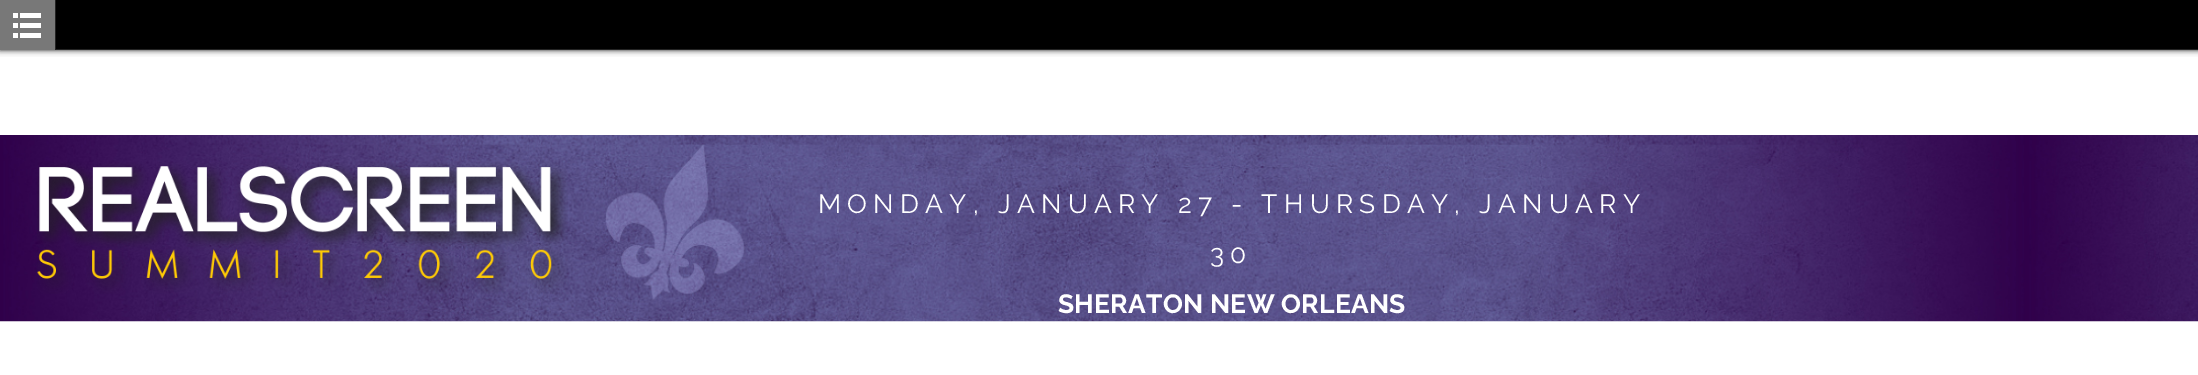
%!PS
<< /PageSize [2198 375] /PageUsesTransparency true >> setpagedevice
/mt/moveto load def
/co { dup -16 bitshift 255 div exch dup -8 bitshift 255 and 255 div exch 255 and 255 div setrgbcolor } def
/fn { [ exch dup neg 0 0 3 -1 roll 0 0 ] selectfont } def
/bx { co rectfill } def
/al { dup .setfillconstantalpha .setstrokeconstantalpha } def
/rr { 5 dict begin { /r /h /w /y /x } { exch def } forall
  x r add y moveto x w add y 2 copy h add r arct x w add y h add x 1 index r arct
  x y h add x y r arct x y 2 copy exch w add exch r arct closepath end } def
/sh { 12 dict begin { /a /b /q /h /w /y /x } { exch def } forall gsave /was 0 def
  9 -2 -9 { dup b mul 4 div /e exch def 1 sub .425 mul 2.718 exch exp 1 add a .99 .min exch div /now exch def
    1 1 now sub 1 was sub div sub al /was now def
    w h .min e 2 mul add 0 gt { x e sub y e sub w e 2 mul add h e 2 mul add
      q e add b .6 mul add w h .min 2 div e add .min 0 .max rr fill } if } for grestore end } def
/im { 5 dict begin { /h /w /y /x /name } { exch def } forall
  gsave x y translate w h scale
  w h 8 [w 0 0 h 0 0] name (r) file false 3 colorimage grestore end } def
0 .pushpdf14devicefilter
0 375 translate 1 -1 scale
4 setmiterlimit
0 0 2198 375 16#FFFFFF bx
16#121212 co
0 0 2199 50 0 3 1 sh
56 0 2142 49 16#000000 bx
56 49 2142 1 16#232323 bx
0 0 55 50 16#787878 bx
55 0 1 50 16#232323 bx
13 13 5 5 16#FFFFFF bx
20 13 21 5 16#FFFFFF bx
13 23 5 5 16#FFFFFF bx
20 23 21 5 16#FFFFFF bx
13 33 5 5 16#FFFFFF bx
20 33 21 5 16#FFFFFF bx
(media/1.raw) 0 135 2198 187 im
(media/2.raw) 37 162 531 132 im
/Raleway-Regular 26.4 fn
818 213 mt 6.25 0 (MONDAY, JANUARY 27 - THURSDAY, JANUARY) ashow
1210 263 mt 6.25 0 (30) ashow
/Raleway-Bold 26.4 fn
1058 313 mt .25 0 (SHERATON NEW ORLEANS) ashow
.poppdf14devicefilter showpage
